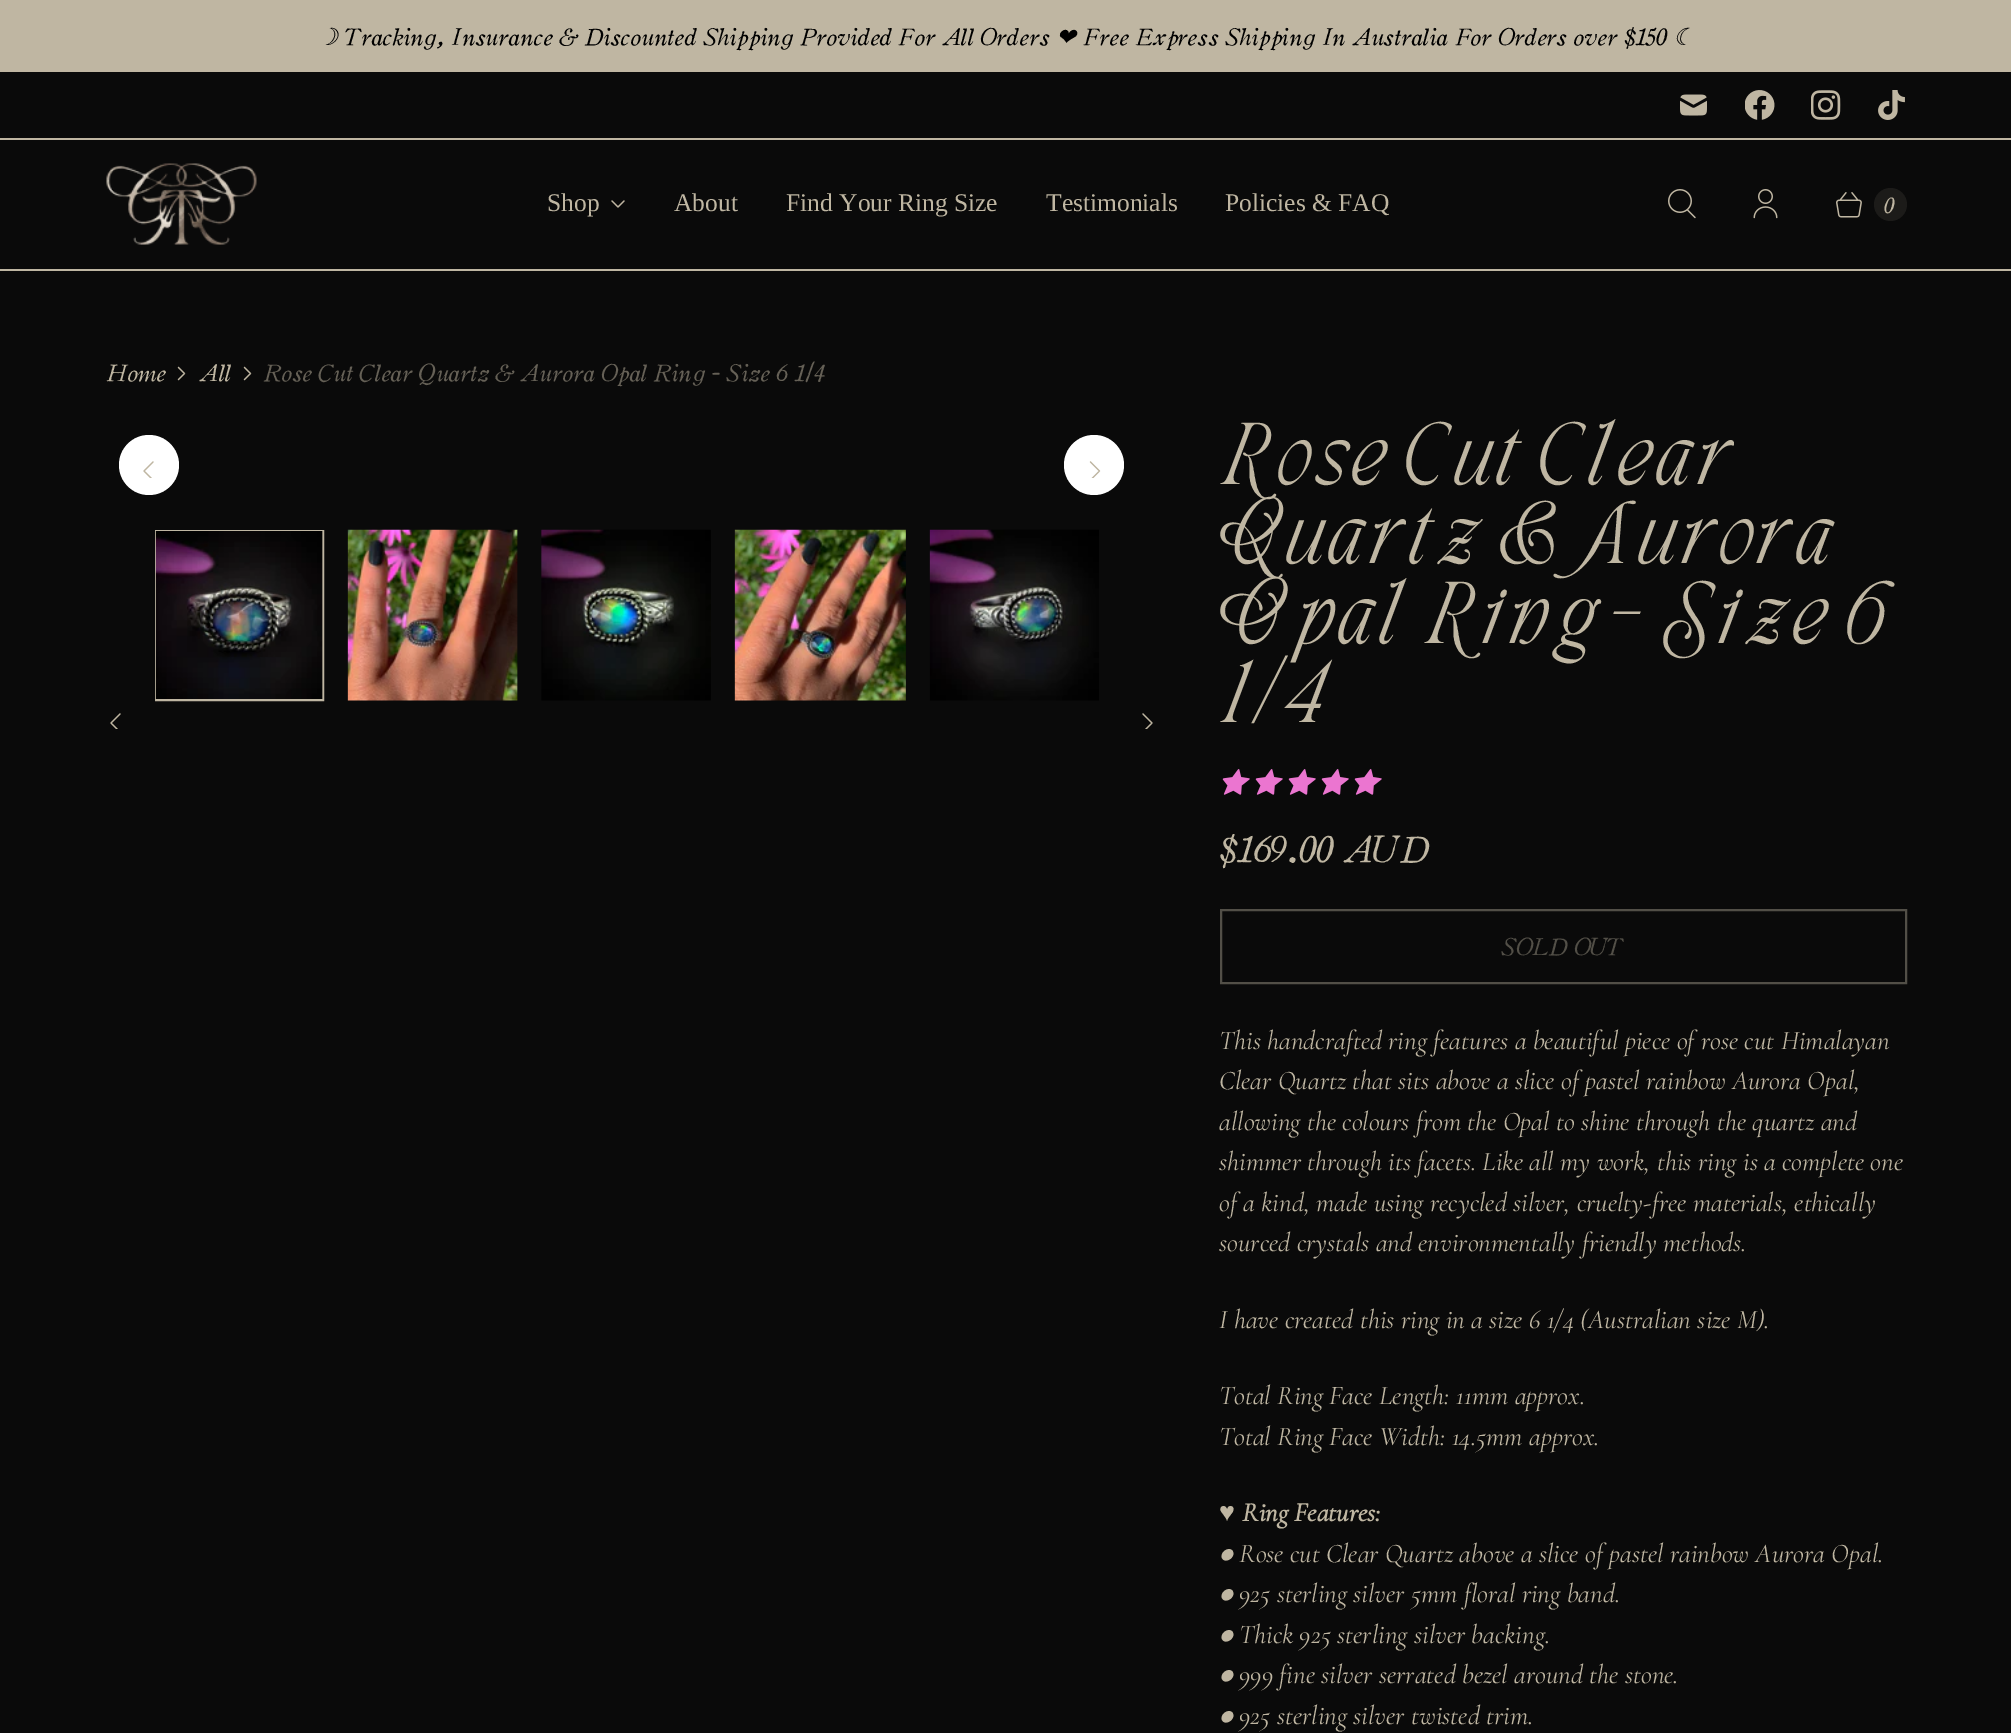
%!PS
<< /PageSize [2011 1733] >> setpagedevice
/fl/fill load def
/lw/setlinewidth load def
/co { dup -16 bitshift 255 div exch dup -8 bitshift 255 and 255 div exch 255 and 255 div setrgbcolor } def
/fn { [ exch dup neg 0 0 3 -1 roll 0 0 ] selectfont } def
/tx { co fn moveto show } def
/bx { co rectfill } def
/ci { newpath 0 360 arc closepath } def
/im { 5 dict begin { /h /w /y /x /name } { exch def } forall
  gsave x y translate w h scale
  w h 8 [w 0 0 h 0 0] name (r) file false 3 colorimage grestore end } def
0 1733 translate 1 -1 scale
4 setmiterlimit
0 0 2011 1733 16#0A0A0A bx
0 0 2011 72 16#BFB6A2 bx
0 138 2011 2 16#BFB6A2 bx
(media/1.raw) 1680 94 27 22 im
(media/2.raw) 1745 90 30 30 im
(media/3.raw) 1811 90 30 30 im
(media/4.raw) 1878 90 27 30 im
0 269 2011 2 16#BFB6A2 bx
(media/5.raw) 106 163 151 82 im
(media/6.raw) 611 200 14 8 im
(media/7.raw) 1668 189 28 30 im
(media/8.raw) 1753 189 25 30 im
(media/9.raw) 1836 192 26 26 im
16#1C1B19 co
1890.5 204.5 16.5 ci fl
(media/10.raw) 177 366 9 15 im
(media/10.raw) 243 366 9 15 im
16#FFFFFF co
149 465 30 ci fl
(media/11.raw) 143 461 11 17 im
1094 465 30 ci fl
(media/12.raw) 1089 461 12 17 im
16#BFB6A2 co
2 lw
156 531 167 169 rectstroke
(media/13.raw) 155 531 168 168 im
(media/14.raw) 347 529 171 172 im
(media/15.raw) 541 529 170 172 im
(media/16.raw) 734 529 172 172 im
(media/17.raw) 929 529 170 172 im
(media/18.raw) 110 713 11 16 im
(media/19.raw) 1142 713 11 16 im
(media/20.raw) 1222 769 28 26 im
(media/20.raw) 1255 769 28 26 im
(media/20.raw) 1288 769 28 26 im
(media/20.raw) 1321 769 28 26 im
(media/20.raw) 1354 769 28 26 im
16#524F47 co
1221 910 685 73 rectstroke
(☽) 317 45 /DejaVuSans-Italic 23.6 16#000000 tx
(Tracking, Insurance & Discounted Shipping Provided For All Orders) 345 45 /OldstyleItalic-Italic 23.6 16#000000 tx
(❤) 1056 45 /DejaVuSans-Italic 23.6 16#000000 tx
(Free Express Shipping In Australia For Orders over $150) 1083 45 /OldstyleItalic-Italic 23.6 16#000000 tx
(☾) 1673 45 /DejaVuSans-Italic 23.6 16#000000 tx
(Shop) 547 211 /LiberationSerif-Regular 25.5 16#BFB6A2 tx
(About) 674 211 /LiberationSerif-Regular 25.5 16#BFB6A2 tx
(Find Your Ring Size) 786 211 /LiberationSerif-Regular 25.5 16#BFB6A2 tx
(Testimonials) 1046 211 /LiberationSerif-Regular 25.5 16#BFB6A2 tx
(Policies & FAQ) 1225 211 /LiberationSerif-Regular 25.5 16#BFB6A2 tx
(0) 1884 213 /OldstyleItalic-Italic 22 16#BFB6A2 tx
(Home) 106 381 /OldstyleItalic-Italic 23.6 16#BFB6A2 tx
(All) 199 381 /OldstyleItalic-Italic 23.6 16#BFB6A2 tx
(Rose Cut Clear Quartz & Aurora Opal Ring - Size 6 1/4) 263 381 /OldstyleItalic-Italic 23.6 16#656056 tx
(Rose Cut Clear) 1219 484 /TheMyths-Regular 61.25 16#BFB6A2 tx
(Quartz & Aurora) 1219 563 /TheMyths-Regular 61.25 16#BFB6A2 tx
(Opal Ring - Size 6) 1219 643 /TheMyths-Regular 61.25 16#BFB6A2 tx
(1/4) 1219 722 /TheMyths-Regular 61.25 16#BFB6A2 tx
($169.00 AUD) 1219 862 /OldstyleItalic-Italic 37 16#BFB6A2 tx
(SOLD OUT) 1501 955 /OldstyleItalic-Italic 24 16#524F47 tx
(This handcrafted ring features a beautiful piece of rose cut Himalayan) 1219 1049 /CormorantGaramond-LightItalic 27 16#BFB6A2 tx
(Clear Quartz that sits above a slice of pastel rainbow Aurora Opal,) 1219 1089 /CormorantGaramond-LightItalic 27 16#BFB6A2 tx
(allowing the colours from the Opal to shine through the quartz and) 1219 1130 /CormorantGaramond-LightItalic 27 16#BFB6A2 tx
(shimmer through its facets. Like all my work, this ring is a complete one) 1219 1170 /CormorantGaramond-LightItalic 27 16#BFB6A2 tx
(of a kind, made using recycled silver, cruelty-free materials, ethically) 1219 1211 /CormorantGaramond-LightItalic 27 16#BFB6A2 tx
(sourced crystals and environmentally friendly methods.) 1219 1251 /CormorantGaramond-LightItalic 27 16#BFB6A2 tx
(I have created this ring in a size 6 1/4 \(Australian size M\).) 1219 1328 /CormorantGaramond-LightItalic 27 16#BFB6A2 tx
(Total Ring Face Length: 11mm approx.) 1219 1404 /CormorantGaramond-LightItalic 27 16#BFB6A2 tx
(Total Ring Face Width: 14.5mm approx.) 1219 1445 /CormorantGaramond-LightItalic 27 16#BFB6A2 tx
(♥) 1219 1521 /LiberationSerif-BoldItalic 27 16#BFB6A2 tx
(Ring Features:) 1242 1521 /CormorantGaramond-BoldItalic 27 16#BFB6A2 tx
(⦁) 1219 1562 /FreeSans-Italic 27 16#BFB6A2 tx
(Rose cut Clear Quartz above a slice of pastel rainbow Aurora Opal.) 1239 1562 /CormorantGaramond-LightItalic 27 16#BFB6A2 tx
(⦁) 1219 1602 /FreeSans-Italic 27 16#BFB6A2 tx
(925 sterling silver 5mm floral ring band.) 1239 1602 /CormorantGaramond-LightItalic 27 16#BFB6A2 tx
(⦁) 1219 1643 /FreeSans-Italic 27 16#BFB6A2 tx
(Thick 925 sterling silver backing.) 1239 1643 /CormorantGaramond-LightItalic 27 16#BFB6A2 tx
(⦁) 1219 1683 /FreeSans-Italic 27 16#BFB6A2 tx
(999 fine silver serrated bezel around the stone.) 1239 1683 /CormorantGaramond-LightItalic 27 16#BFB6A2 tx
(⦁) 1219 1724 /FreeSans-Italic 27 16#BFB6A2 tx
(925 sterling silver twisted trim.) 1239 1724 /CormorantGaramond-LightItalic 27 16#BFB6A2 tx
showpage
